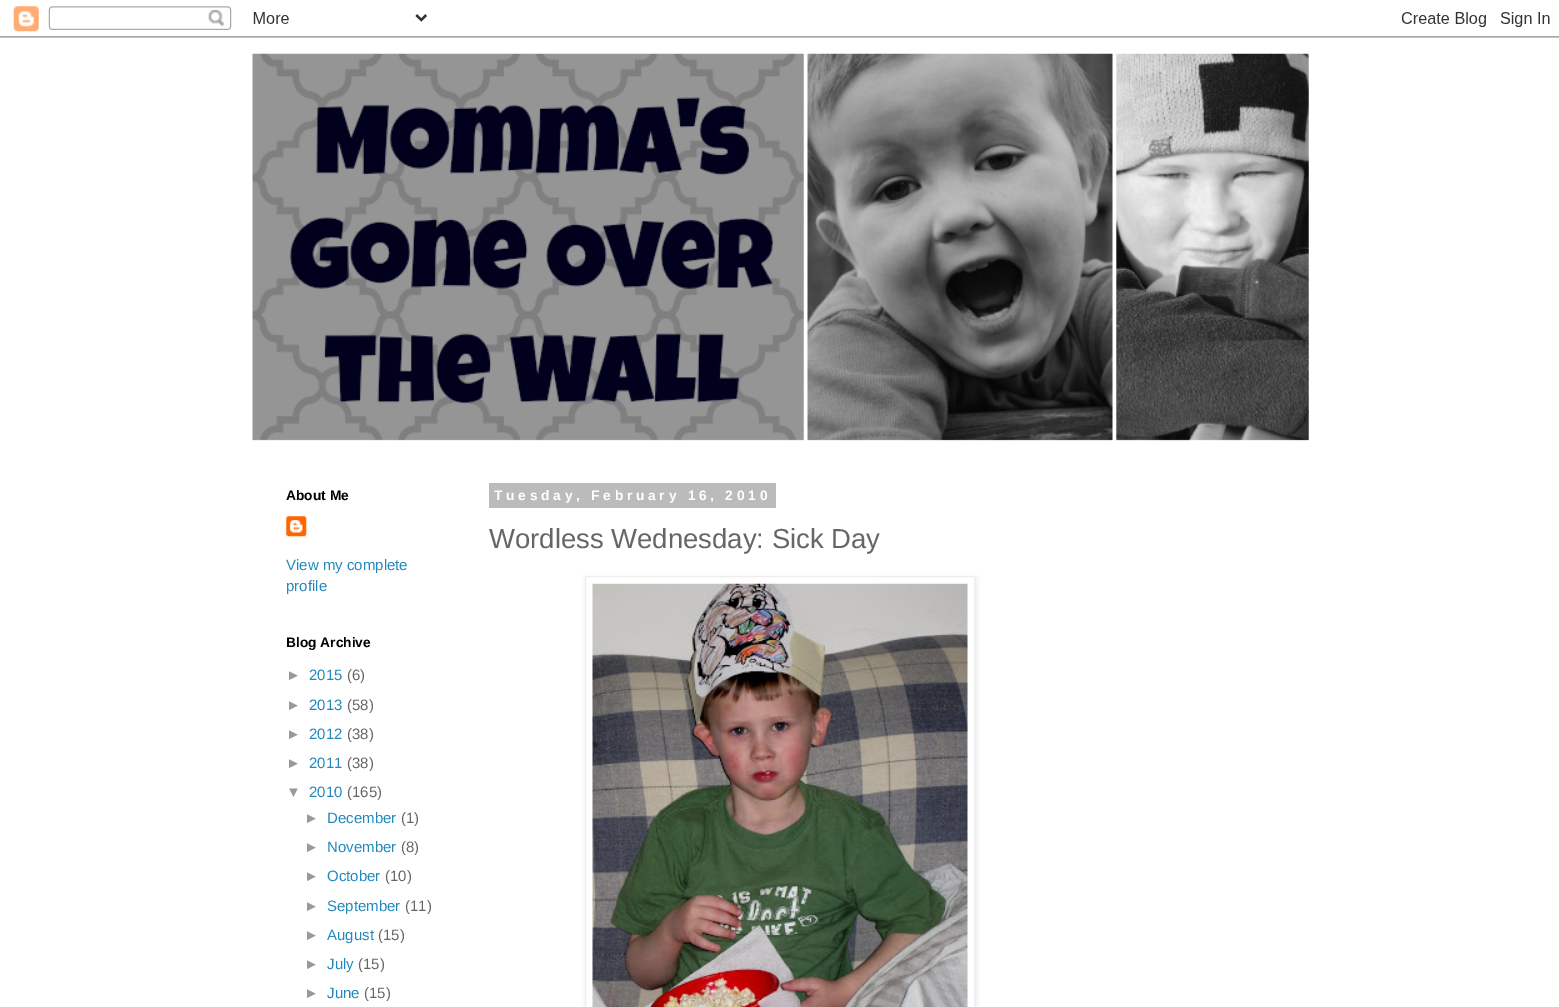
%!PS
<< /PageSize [1559 1007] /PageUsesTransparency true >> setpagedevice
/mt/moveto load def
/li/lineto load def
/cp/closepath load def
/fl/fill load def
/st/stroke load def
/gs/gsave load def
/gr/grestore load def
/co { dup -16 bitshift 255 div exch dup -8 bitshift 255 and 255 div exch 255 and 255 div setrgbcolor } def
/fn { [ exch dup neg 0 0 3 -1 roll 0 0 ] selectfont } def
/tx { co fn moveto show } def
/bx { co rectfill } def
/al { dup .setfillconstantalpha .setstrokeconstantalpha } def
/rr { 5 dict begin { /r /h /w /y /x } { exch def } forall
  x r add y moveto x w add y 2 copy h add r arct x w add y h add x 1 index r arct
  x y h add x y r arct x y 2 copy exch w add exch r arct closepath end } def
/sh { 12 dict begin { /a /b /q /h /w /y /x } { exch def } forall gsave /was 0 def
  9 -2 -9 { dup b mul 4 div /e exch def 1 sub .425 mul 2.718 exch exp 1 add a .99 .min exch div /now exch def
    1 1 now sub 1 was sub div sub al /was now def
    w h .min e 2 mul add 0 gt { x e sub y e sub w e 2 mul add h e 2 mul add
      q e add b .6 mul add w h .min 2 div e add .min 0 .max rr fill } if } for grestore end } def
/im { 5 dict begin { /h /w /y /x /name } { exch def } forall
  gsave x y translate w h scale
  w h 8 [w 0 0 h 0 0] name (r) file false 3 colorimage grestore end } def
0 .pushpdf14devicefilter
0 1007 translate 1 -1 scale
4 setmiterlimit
0 0 1559 1007 16#FFFFFF bx
(media/1.raw) 0 6 1559 32 im
(media/2.raw) 252 53 1057 388 im
(media/3.raw) 286 516 21 21 im
489 483 287 25 16#BBBBBB bx
16#000000 co
586 578 390 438 0 3 .1 sh
16#FFFFFF co
585.5 576.5 mt 974.5 576.5 li 974.5 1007.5 li 585.5 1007.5 li cp gs fl gr
16#EEEEEE co
st
(media/4.raw) 592 583 376 424 im
(About Me) 286 500 /LiberationSans-Bold 13.75 16#000000 tx
(View my complete) 286 570 /LiberationSans-Regular 15 16#2288BB tx
(profile) 286 591 /LiberationSans-Regular 15 16#2288BB tx
(Blog Archive) 286 647 /LiberationSans-Bold 13.75 16#000000 tx
(►) 286 680 /LiberationSans-Regular 15 16#999999 tx
(2015) 309 680 /LiberationSans-Regular 15 16#2288BB tx
(\(6\)) 347 680 /LiberationSans-Regular 15 16#666666 tx
(►) 286 710 /LiberationSans-Regular 15 16#999999 tx
(2013) 309 710 /LiberationSans-Regular 15 16#2288BB tx
(\(58\)) 347 710 /LiberationSans-Regular 15 16#666666 tx
(►) 286 739 /LiberationSans-Regular 15 16#999999 tx
(2012) 309 739 /LiberationSans-Regular 15 16#2288BB tx
(\(38\)) 347 739 /LiberationSans-Regular 15 16#666666 tx
(►) 286 768 /LiberationSans-Regular 15 16#999999 tx
(2011) 309 768 /LiberationSans-Regular 15 16#2288BB tx
(\(38\)) 347 768 /LiberationSans-Regular 15 16#666666 tx
(▼) 286 797 /LiberationSans-Regular 15 16#999999 tx
(2010) 309 797 /LiberationSans-Regular 15 16#2288BB tx
(\(165\)) 347 797 /LiberationSans-Regular 15 16#666666 tx
(►) 304 823 /LiberationSans-Regular 15 16#999999 tx
(December) 327 823 /LiberationSans-Regular 15 16#2288BB tx
(\(1\)) 401 823 /LiberationSans-Regular 15 16#666666 tx
(►) 304 852 /LiberationSans-Regular 15 16#999999 tx
(November) 327 852 /LiberationSans-Regular 15 16#2288BB tx
(\(8\)) 401 852 /LiberationSans-Regular 15 16#666666 tx
(►) 304 881 /LiberationSans-Regular 15 16#999999 tx
(October) 327 881 /LiberationSans-Regular 15 16#2288BB tx
(\(10\)) 385 881 /LiberationSans-Regular 15 16#666666 tx
(►) 304 911 /LiberationSans-Regular 15 16#999999 tx
(September) 327 911 /LiberationSans-Regular 15 16#2288BB tx
(\(11\)) 405 911 /LiberationSans-Regular 15 16#666666 tx
(►) 304 940 /LiberationSans-Regular 15 16#999999 tx
(August) 327 940 /LiberationSans-Regular 15 16#2288BB tx
(\(15\)) 378 940 /LiberationSans-Regular 15 16#666666 tx
(►) 304 969 /LiberationSans-Regular 15 16#999999 tx
(July) 327 969 /LiberationSans-Regular 15 16#2288BB tx
(\(15\)) 358 969 /LiberationSans-Regular 15 16#666666 tx
(►) 304 998 /LiberationSans-Regular 15 16#999999 tx
(June) 327 998 /LiberationSans-Regular 15 16#2288BB tx
(\(15\)) 364 998 /LiberationSans-Regular 15 16#666666 tx
/LiberationSans-Bold 13.75 fn
16#FFFFFF co
494 500 mt 3.75 0 (Tuesday, February 16, 2010) ashow
(Wordless Wednesday: Sick Day) 489 548 /LiberationSans-Regular 27.5 16#666666 tx
.poppdf14devicefilter showpage
